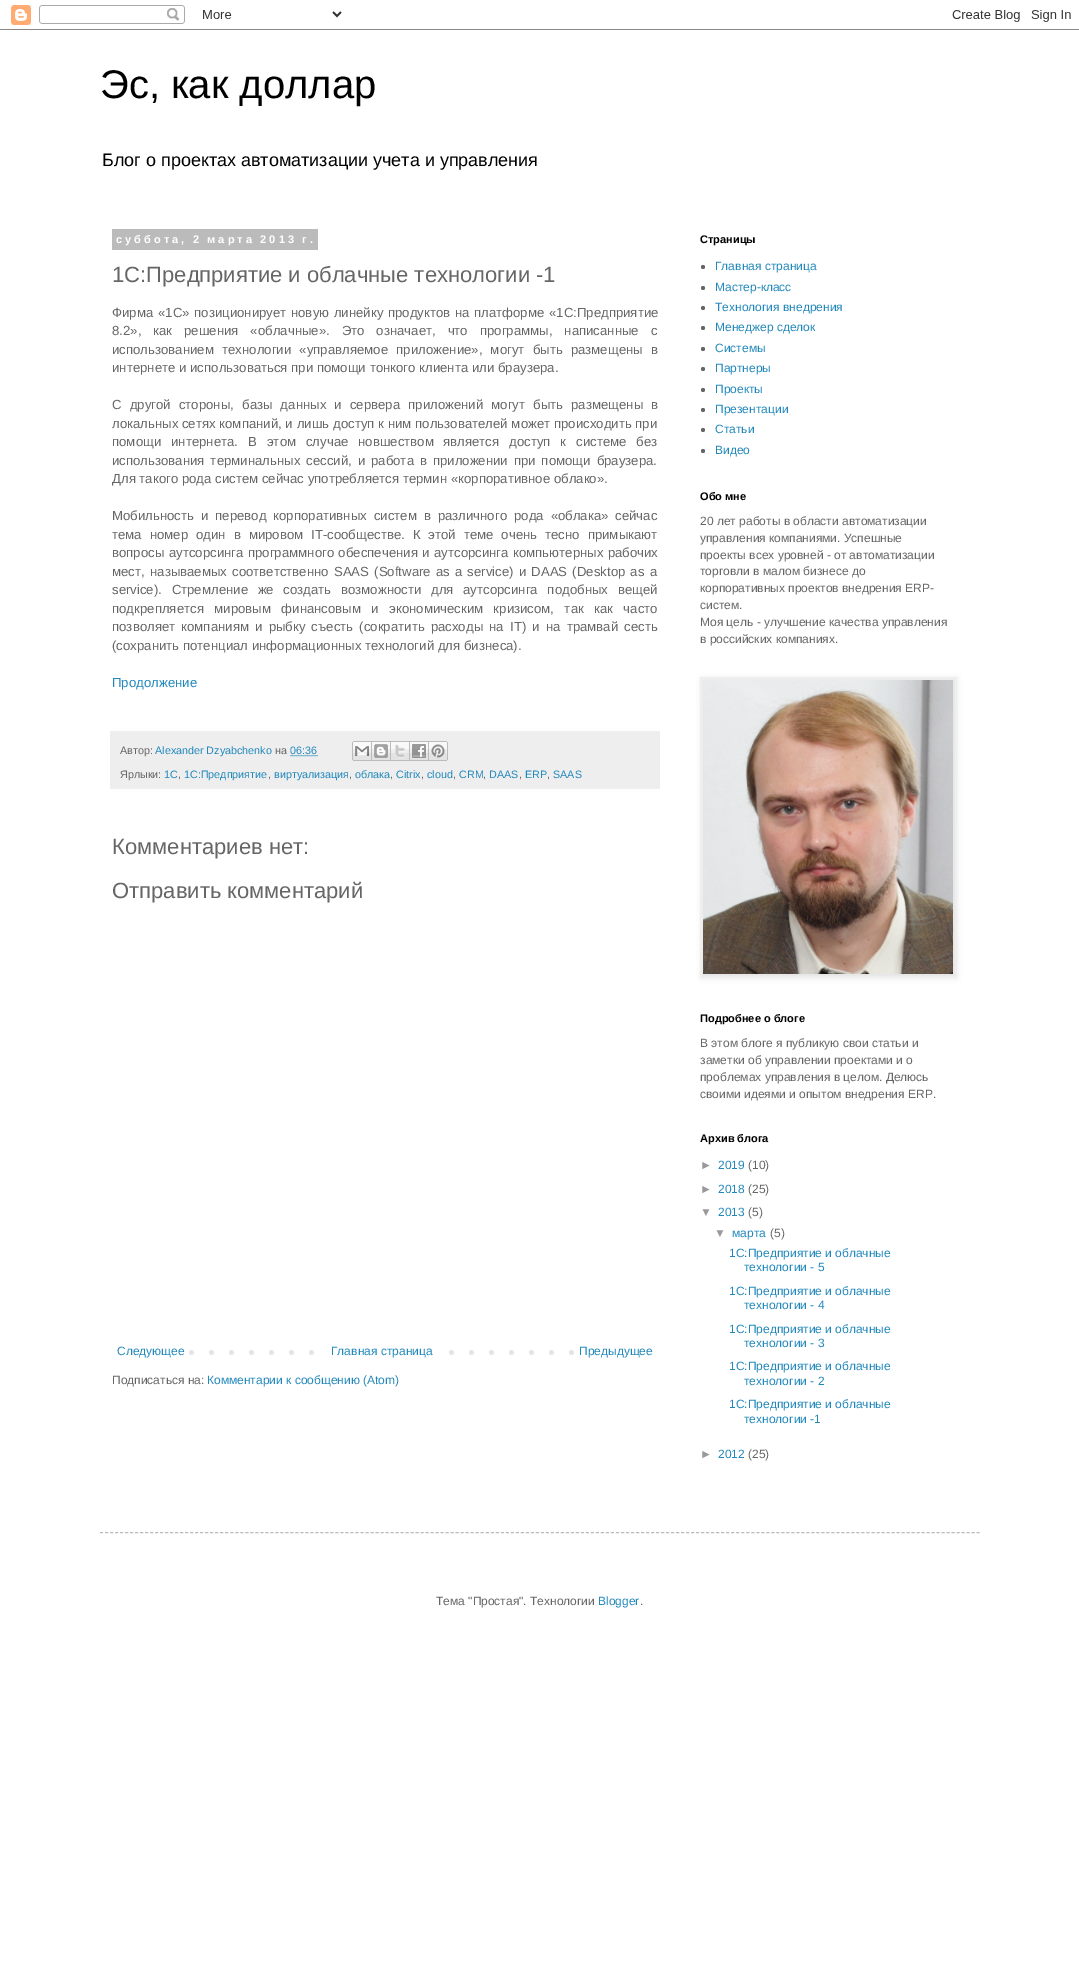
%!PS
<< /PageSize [1079 1973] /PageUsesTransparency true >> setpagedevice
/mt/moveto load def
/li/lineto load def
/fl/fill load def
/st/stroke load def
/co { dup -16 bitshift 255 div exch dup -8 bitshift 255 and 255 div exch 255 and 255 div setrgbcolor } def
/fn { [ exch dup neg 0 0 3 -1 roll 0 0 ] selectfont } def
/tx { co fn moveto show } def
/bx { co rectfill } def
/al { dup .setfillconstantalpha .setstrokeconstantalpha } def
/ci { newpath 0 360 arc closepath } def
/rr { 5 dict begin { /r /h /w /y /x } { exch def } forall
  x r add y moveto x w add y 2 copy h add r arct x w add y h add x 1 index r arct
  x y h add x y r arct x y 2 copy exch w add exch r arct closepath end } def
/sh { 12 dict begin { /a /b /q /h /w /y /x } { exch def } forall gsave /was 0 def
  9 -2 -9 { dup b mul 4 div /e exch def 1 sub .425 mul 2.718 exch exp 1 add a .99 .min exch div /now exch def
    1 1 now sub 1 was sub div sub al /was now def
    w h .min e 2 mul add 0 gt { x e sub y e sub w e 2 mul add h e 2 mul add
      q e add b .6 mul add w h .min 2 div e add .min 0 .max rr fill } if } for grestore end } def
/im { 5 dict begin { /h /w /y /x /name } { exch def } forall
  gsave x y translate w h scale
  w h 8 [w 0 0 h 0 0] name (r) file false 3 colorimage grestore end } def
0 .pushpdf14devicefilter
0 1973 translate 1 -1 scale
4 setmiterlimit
0 0 1079 1973 16#FFFFFF bx
(media/1.raw) 0 5 1079 25 im
112 229 206 21 16#BBBBBB bx
110 731 550 58 16#EEEEEE bx
16#2288BB co
[1 1] 0 setdash
290.5 755.5 mt 317.5 755.5 li st
(media/2.raw) 352 741 20 20 im
(media/3.raw) 372 741 19 20 im
(media/4.raw) 391 741 19 20 im
(media/5.raw) 410 741 19 20 im
(media/6.raw) 429 741 19 20 im
(media/7.raw) 189 1350 385 5 im
329 1350 106 5 16#FFFFFF bx
16#666666 co
703 267 2 ci fl
703 288 2 ci fl
703 308 2 ci fl
703 328 2 ci fl
703 349 2 ci fl
703 369 2 ci fl
703 390 2 ci fl
703 410 2 ci fl
703 430 2 ci fl
703 451 2 ci fl
16#000000 co
701 678 256 300 0 2.5 .1 sh
16#EEEEEE co
[] 0 setdash
700.5 677.5 255 299 rectstroke
(media/8.raw) 703 680 250 294 im
16#BBBBBB co
[3 2.01] 0 setdash
100 1532.5 mt 980 1532.5 li st
(Эс, как доллар) 100 98 /LiberationSans-Regular 40 16#000000 tx
(Блог о проектах автоматизации учета и управления) 102 166 /LiberationSans-Regular 18 16#000000 tx
/LiberationSans-Bold 11 fn
16#FFFFFF co
116 243 mt -.5 0 32 3 0 (суббота, 2 марта 2013 г.) awidthshow
(1C:Предприятие и облачные технологии -1) 112 282 /LiberationSans-Regular 22 16#666666 tx
/LiberationSans-Regular 13.2 fn
112 317 mt 1 0 32 (Фирма «1С» позиционирует новую линейку продуктов на платформе «1С:Предприятие) widthshow
112 335 mt 8.25 0 32 (8.2», как решения «облачные». Это означает, что программы, написанные с) widthshow
112 354 mt 4.5 0 32 (использованием технологии «управляемое приложение», могут быть размещены в) widthshow
(интернете и использоваться при помощи тонкого клиента или браузера.) 112 372 /LiberationSans-Regular 13.2 16#666666 tx
112 409 mt 4.4 0 32 (С другой стороны, базы данных и сервера приложений могут быть размещены в) widthshow
112 428 mt .1 0 32 (локальных сетях компаний, и лишь доступ к ним пользователей может происходить при) widthshow
112 446 mt 6.25 0 32 (помощи интернета. В этом случае новшеством) widthshow
443 446 mt 6.25 0 32 (является доступ к системе без) widthshow
112 465 mt 2.25 0 32 (использования терминальных сессий, и работа в приложении при помощи браузера.) widthshow
(Для такого рода систем сейчас употребляется термин «корпоративное облако».) 112 483 /LiberationSans-Regular 13.2 16#666666 tx
112 520 mt 3.25 0 32 (Мобильность и перевод корпоративных систем в различного рода «облака» сейчас) widthshow
112 539 mt 4.25 0 32 (тема номер один в мировом IT-сообществе. К этой теме очень тесно примыкают) widthshow
112 557 mt .75 0 32 (вопросы аутсорсинга программного обеспечения и аутсорсинга компьютерных рабочих) widthshow
112 576 mt 1.5 0 32 (мест, называемых соответственно SAAS \(Software as a service\) и DAAS \(Desktop as a) widthshow
112 594 mt 6 0 32 (service\). Стремление же создать возможности для аутсорсинга подобных вещей) widthshow
112 613 mt 6.75 0 32 (подкрепляется мировым финансовым и экономическим кризисом, так как часто) widthshow
112 631 mt 2.5 0 32 (позволяет компаниям и рыбку съесть \(сократить расходы на IT\) и на трамвай сесть) widthshow
(\(сохранить потенциал информационных технологий для бизнеса\).) 112 650 /LiberationSans-Regular 13.2 16#666666 tx
(Продолжение) 112 687 /LiberationSans-Regular 13.2 16#2288BB tx
(Автор:) 120 754 /LiberationSans-Regular 10.75 16#666666 tx
(Alexander Dzyabchenko) 155 754 /LiberationSans-Regular 10.75 16#2288BB tx
(на) 275 754 /LiberationSans-Regular 10.75 16#666666 tx
(06:36) 290 754 /LiberationSans-Regular 10.75 16#2288BB tx
(Ярлыки:) 120 778 /LiberationSans-Regular 10.75 16#666666 tx
(1С) 164 778 /LiberationSans-Regular 10.75 16#2288BB tx
(,) 178 778 /LiberationSans-Regular 10.75 16#666666 tx
(1С:Предприятие) 184 778 /LiberationSans-Regular 10.75 16#2288BB tx
(,) 268 778 /LiberationSans-Regular 10.75 16#666666 tx
(виртуализация) 274 778 /LiberationSans-Regular 10.75 16#2288BB tx
(,) 349 778 /LiberationSans-Regular 10.75 16#666666 tx
(облака) 355 778 /LiberationSans-Regular 10.75 16#2288BB tx
(,) 390 778 /LiberationSans-Regular 10.75 16#666666 tx
(Citrix) 396 778 /LiberationSans-Regular 10.75 16#2288BB tx
(,) 421 778 /LiberationSans-Regular 10.75 16#666666 tx
(cloud) 427 778 /LiberationSans-Regular 10.75 16#2288BB tx
(,) 453 778 /LiberationSans-Regular 10.75 16#666666 tx
(CRM) 459 778 /LiberationSans-Regular 10.75 16#2288BB tx
(,) 483 778 /LiberationSans-Regular 10.75 16#666666 tx
(DAAS) 489 778 /LiberationSans-Regular 10.75 16#2288BB tx
(,) 519 778 /LiberationSans-Regular 10.75 16#666666 tx
(ERP) 525 778 /LiberationSans-Regular 10.75 16#2288BB tx
(,) 547 778 /LiberationSans-Regular 10.75 16#666666 tx
(SAAS) 553 778 /LiberationSans-Regular 10.75 16#2288BB tx
(Комментариев нет:) 112 854 /LiberationSans-Regular 22 16#666666 tx
(Отправить комментарий) 112 898 /LiberationSans-Regular 22 16#666666 tx
(Следующее) 117 1355 /LiberationSans-Regular 12 16#2288BB tx
(Главная страница) 331 1355 /LiberationSans-Regular 12 16#2288BB tx
(Предыдущее) 579 1355 /LiberationSans-Regular 12 16#2288BB tx
(Подписаться на:) 112 1384 /LiberationSans-Regular 12 16#666666 tx
(Комментарии к сообщению \(Atom\)) 207 1384 /LiberationSans-Regular 12 16#2288BB tx
(Страницы) 700 243 /LiberationSans-Bold 11 16#000000 tx
(Главная страница) 715 270 /LiberationSans-Regular 12 16#2288BB tx
(Мастер-класс) 715 291 /LiberationSans-Regular 12 16#2288BB tx
(Технология внедрения) 715 311 /LiberationSans-Regular 12 16#2288BB tx
(Менеджер сделок) 715 331 /LiberationSans-Regular 12 16#2288BB tx
(Системы) 715 352 /LiberationSans-Regular 12 16#2288BB tx
(Партнеры) 715 372 /LiberationSans-Regular 12 16#2288BB tx
(Проекты) 715 393 /LiberationSans-Regular 12 16#2288BB tx
(Презентации) 715 413 /LiberationSans-Regular 12 16#2288BB tx
(Статьи) 715 433 /LiberationSans-Regular 12 16#2288BB tx
(Видео) 715 454 /LiberationSans-Regular 12 16#2288BB tx
(Обо мне) 700 500 /LiberationSans-Bold 11 16#000000 tx
(20 лет работы в области автоматизации) 700 525 /LiberationSans-Regular 12 16#666666 tx
(управления компаниями. Успешные) 700 542 /LiberationSans-Regular 12 16#666666 tx
(проекты всех уровней - от автоматизации) 700 559 /LiberationSans-Regular 12 16#666666 tx
(торговли в малом бизнесе до) 700 575 /LiberationSans-Regular 12 16#666666 tx
(корпоративных проектов внедрения ERP-) 700 592 /LiberationSans-Regular 12 16#666666 tx
(систем.) 700 609 /LiberationSans-Regular 12 16#666666 tx
(Моя цель - улучшение качества управления) 700 626 /LiberationSans-Regular 12 16#666666 tx
(в российских компаниях.) 700 643 /LiberationSans-Regular 12 16#666666 tx
(Подробнее о блоге) 700 1022 /LiberationSans-Bold 11 16#000000 tx
(В этом блоге я публикую свои статьи и) 700 1047 /LiberationSans-Regular 12 16#666666 tx
(заметки об управлении проектами и о) 700 1064 /LiberationSans-Regular 12 16#666666 tx
(проблемах управления в целом. Делюсь) 700 1081 /LiberationSans-Regular 12 16#666666 tx
(своими идеями и опытом внедрения ERP.) 700 1098 /LiberationSans-Regular 12 16#666666 tx
(Архив блога) 700 1142 /LiberationSans-Bold 11 16#000000 tx
(►) 700 1169 /LiberationSans-Regular 12 16#999999 tx
(2019) 718 1169 /LiberationSans-Regular 12 16#2288BB tx
(\(10\)) 748 1169 /LiberationSans-Regular 12 16#666666 tx
(►) 700 1193 /LiberationSans-Regular 12 16#999999 tx
(2018) 718 1193 /LiberationSans-Regular 12 16#2288BB tx
(\(25\)) 748 1193 /LiberationSans-Regular 12 16#666666 tx
(▼) 700 1216 /LiberationSans-Regular 12 16#999999 tx
(2013) 718 1216 /LiberationSans-Regular 12 16#2288BB tx
(\(5\)) 748 1216 /LiberationSans-Regular 12 16#666666 tx
(▼) 714 1237 /LiberationSans-Regular 12 16#999999 tx
(марта) 732 1237 /LiberationSans-Regular 12 16#2288BB tx
(\(5\)) 770 1237 /LiberationSans-Regular 12 16#666666 tx
(1C:Предприятие и облачные) 729 1257 /LiberationSans-Regular 12 16#2288BB tx
(технологии - 5) 744 1271 /LiberationSans-Regular 12 16#2288BB tx
(1C:Предприятие и облачные) 729 1295 /LiberationSans-Regular 12 16#2288BB tx
(технологии - 4) 744 1309 /LiberationSans-Regular 12 16#2288BB tx
(1C:Предприятие и облачные) 729 1333 /LiberationSans-Regular 12 16#2288BB tx
(технологии - 3) 744 1347 /LiberationSans-Regular 12 16#2288BB tx
(1C:Предприятие и облачные) 729 1370 /LiberationSans-Regular 12 16#2288BB tx
(технологии - 2) 744 1385 /LiberationSans-Regular 12 16#2288BB tx
(1C:Предприятие и облачные) 729 1408 /LiberationSans-Regular 12 16#2288BB tx
(технологии -1) 744 1423 /LiberationSans-Regular 12 16#2288BB tx
(►) 700 1458 /LiberationSans-Regular 12 16#999999 tx
(2012) 718 1458 /LiberationSans-Regular 12 16#2288BB tx
(\(25\)) 748 1458 /LiberationSans-Regular 12 16#666666 tx
(Тема "Простая". Технологии) 436 1605 /LiberationSans-Regular 12 16#666666 tx
(Blogger) 598 1605 /LiberationSans-Regular 12 16#2288BB tx
(.) 640 1605 /LiberationSans-Regular 12 16#666666 tx
.poppdf14devicefilter showpage
